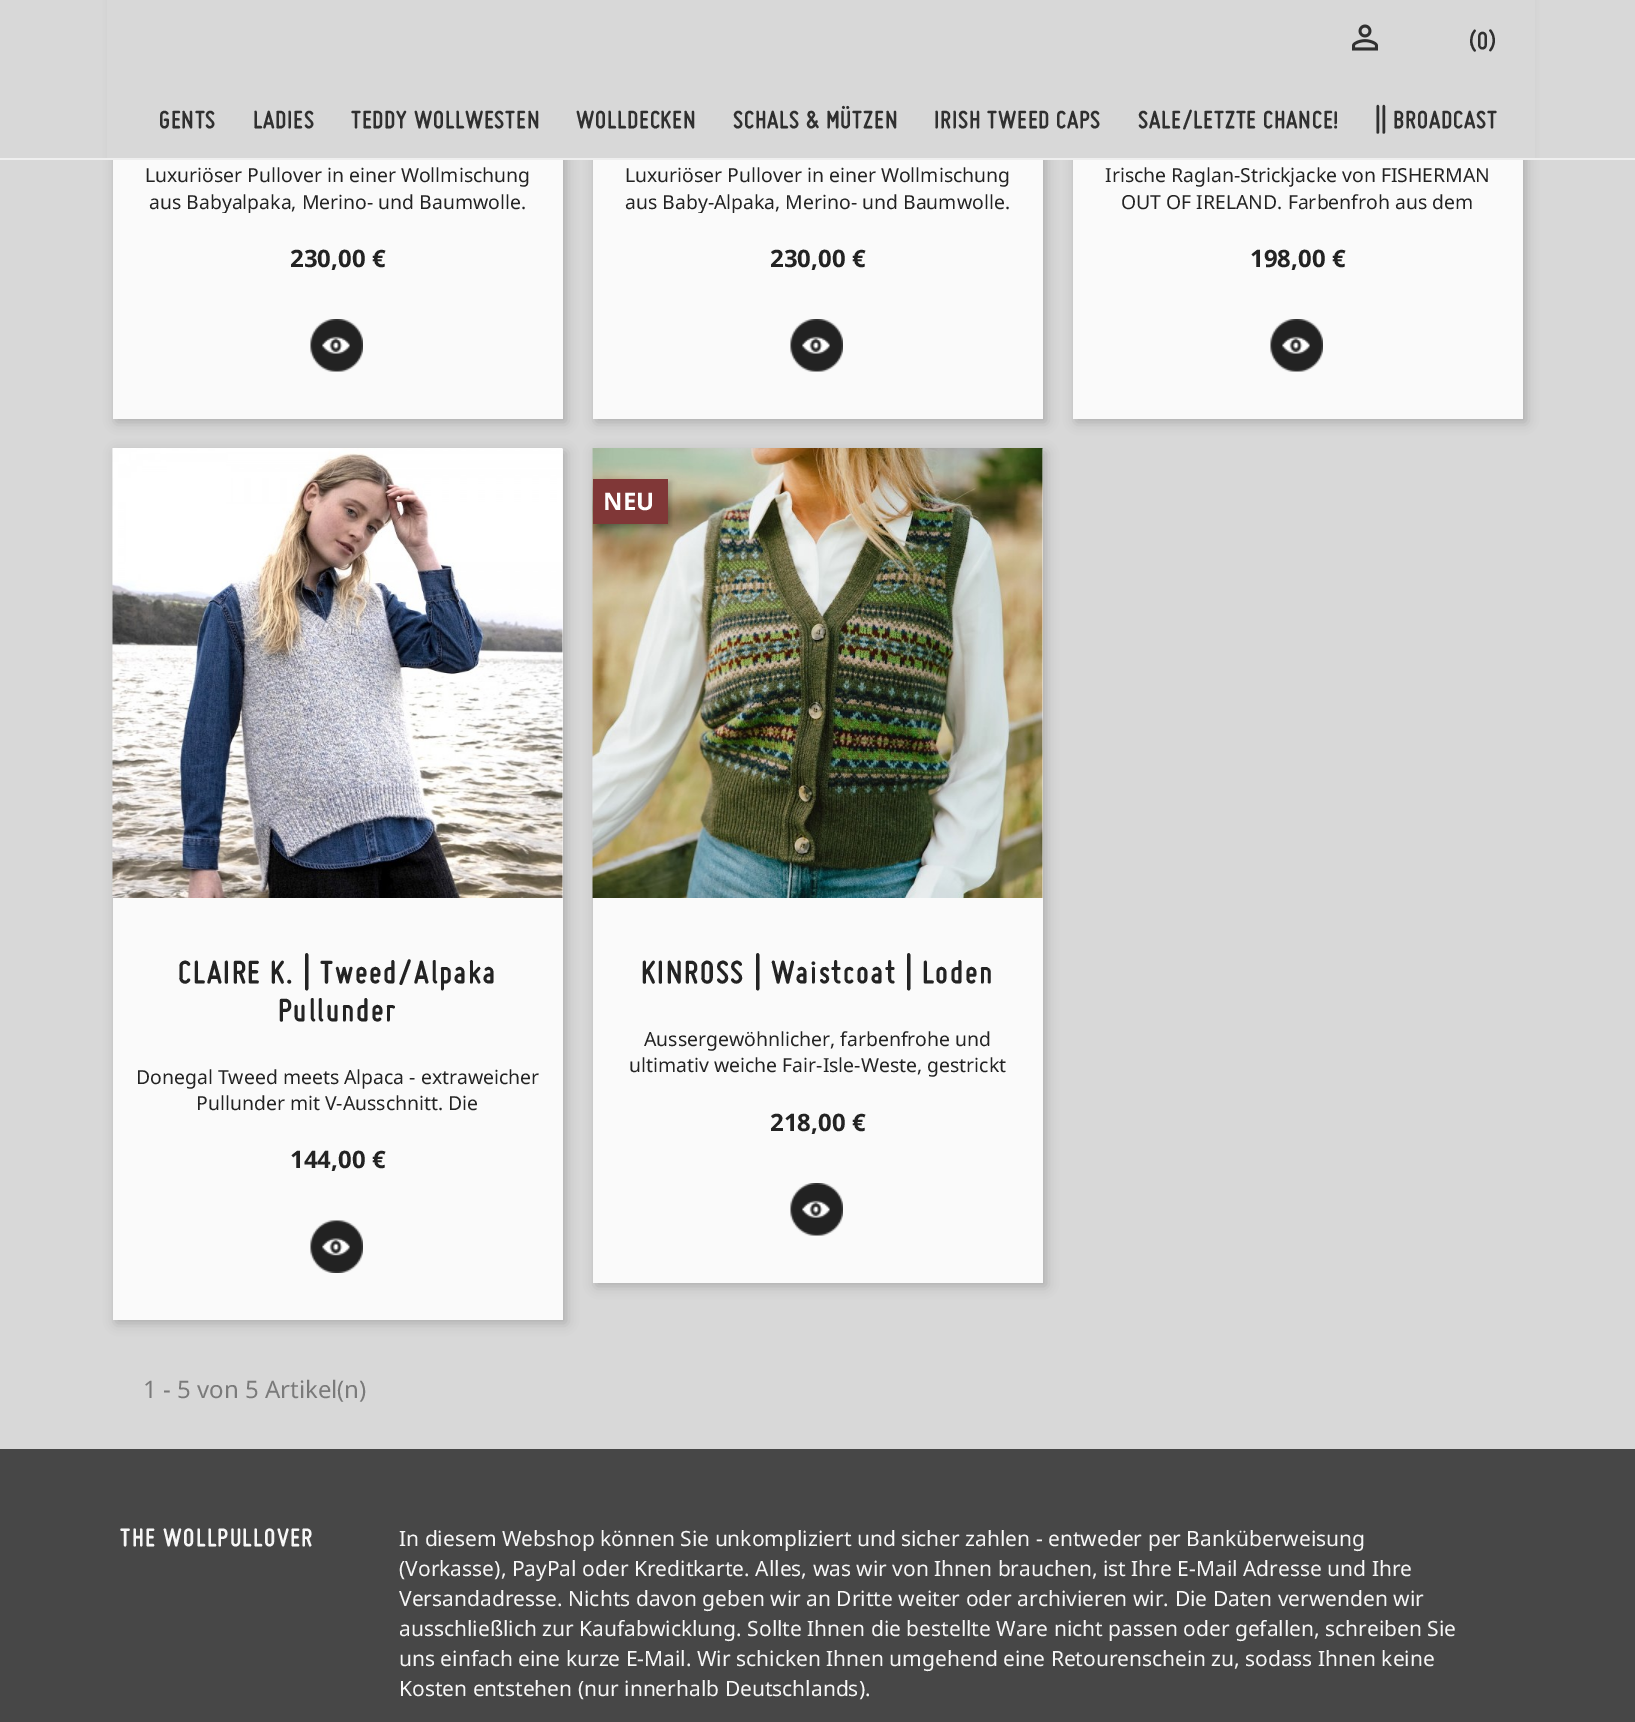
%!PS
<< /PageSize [1635 1722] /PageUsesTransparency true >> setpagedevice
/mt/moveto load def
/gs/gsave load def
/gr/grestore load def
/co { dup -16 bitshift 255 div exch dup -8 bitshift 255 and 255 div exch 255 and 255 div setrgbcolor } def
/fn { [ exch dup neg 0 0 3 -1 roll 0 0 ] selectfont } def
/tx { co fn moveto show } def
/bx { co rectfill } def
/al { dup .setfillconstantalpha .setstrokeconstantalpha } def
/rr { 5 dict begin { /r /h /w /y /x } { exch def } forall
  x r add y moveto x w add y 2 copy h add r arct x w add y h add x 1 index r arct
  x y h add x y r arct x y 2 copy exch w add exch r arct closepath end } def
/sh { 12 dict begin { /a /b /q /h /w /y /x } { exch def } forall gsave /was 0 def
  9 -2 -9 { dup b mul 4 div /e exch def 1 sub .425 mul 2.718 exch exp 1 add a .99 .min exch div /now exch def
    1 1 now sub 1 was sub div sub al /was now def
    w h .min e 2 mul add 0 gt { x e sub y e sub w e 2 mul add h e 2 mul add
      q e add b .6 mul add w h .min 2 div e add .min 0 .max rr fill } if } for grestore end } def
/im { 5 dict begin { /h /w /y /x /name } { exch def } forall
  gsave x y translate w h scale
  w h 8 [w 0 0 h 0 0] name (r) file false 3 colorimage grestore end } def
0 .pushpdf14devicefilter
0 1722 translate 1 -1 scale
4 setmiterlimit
0 0 1635 1722 16#D8D8D8 bx
16#000000 co
116 -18 450 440 0 6 .2 sh
596 -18 450 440 0 6 .2 sh
1076 -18 450 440 0 6 .2 sh
107 0 1428 158 16#D8D8D8 bx
0 158 1635 2 16#EFEFEF bx
(media/1.raw) 1352 24 26 27 im
113 160 450 259 16#FAFAFA bx
(media/2.raw) 310 319 53 53 im
593 160 450 259 16#FAFAFA bx
(media/2.raw) 790 319 53 53 im
1073 160 450 259 16#FAFAFA bx
(media/2.raw) 1270 319 53 53 im
16#000000 co
116 452 450 871 0 6 .2 sh
113 449 450 871 16#FAFAFA bx
(media/3.raw) 112 448 451 450 im
(media/4.raw) 310 1220 53 53 im
16#000000 co
596 452 450 834 0 6 .2 sh
593 449 450 834 16#FAFAFA bx
(media/5.raw) 592 448 451 450 im
16#000000 co
596 482 75 45 0 3 .2 sh
593 479 75 45 16#803737 bx
(media/2.raw) 790 1183 53 53 im
0 1449 1635 273 16#474747 bx
/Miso-Bold 26.5 fn
16#303030 co
1469 49 mt .75 0 (\(0\)) ashow
159 128 mt .75 0 (GENTS) ashow
253 128 mt .75 0 (LADIES) ashow
351 128 mt .75 0 (TEDDY WOLLWESTEN) ashow
576 128 mt .75 0 (WOLLDECKEN) ashow
733 128 mt .75 0 (SCHALS & MÜTZEN) ashow
934 128 mt .75 0 (IRISH TWEED CAPS) ashow
1138 128 mt .75 0 (SALE/LETZTE CHANCE!) ashow
1375 128 mt .75 0 (|| BROADCAST) ashow
(Luxuriöser Pullover in einer Wollmischung) 145 182 /NotoSans-Regular 19.4 16#232323 tx
gs
135 162 405 51 rectclip
(aus Babyalpaka, Merino- und Baumwolle.) 149 209 /NotoSans-Regular 19.4 16#232323 tx
gr
(230,00 €) 290 267 /NotoSans-Bold 24 16#232323 tx
(Luxuriöser Pullover in einer Wollmischung) 625 182 /NotoSans-Regular 19.4 16#232323 tx
gs
615 162 405 51 rectclip
(aus Baby-Alpaka, Merino- und Baumwolle.) 625 209 /NotoSans-Regular 19.4 16#232323 tx
gr
(230,00 €) 770 267 /NotoSans-Bold 24 16#232323 tx
(Irische Raglan-Strickjacke von FISHERMAN) 1105 182 /NotoSans-Regular 19.4 16#232323 tx
(OUT OF IRELAND. Farbenfroh aus dem) 1121 209 /NotoSans-Regular 19.4 16#232323 tx
(198,00 €) 1250 267 /NotoSans-Bold 24 16#232323 tx
/Miso-Bold 34.25 fn
178 983 mt 1.7 0 (CLAIRE K. | Tweed/Alpaka) ashow
278 1021 mt 1.7 0 (Pullunder) ashow
(Donegal Tweed meets Alpaca - extraweicher) 136 1084 /NotoSans-Regular 19.4 16#232323 tx
(Pullunder mit V-Ausschnitt. Die) 196 1110 /NotoSans-Regular 19.4 16#232323 tx
(144,00 €) 290 1168 /NotoSans-Bold 24 16#232323 tx
(NEU) 603 510 /NotoSans-Bold 24 16#FFFFFF tx
/Miso-Bold 34.25 fn
16#232323 co
641 983 mt 1.7 0 (KINROSS | Waistcoat | Loden) ashow
(Aussergewöhnlicher, farbenfrohe und) 644 1046 /NotoSans-Regular 19.4 16#232323 tx
(ultimativ weiche Fair-Isle-Weste, gestrickt) 629 1072 /NotoSans-Regular 19.4 16#232323 tx
(218,00 €) 770 1131 /NotoSans-Bold 24 16#232323 tx
(1 - 5 von 5 Artikel\(n\)) 143 1398 /NotoSans-Regular 24 16#7A7A7A tx
/Miso-Bold 27 fn
16#F7F7F7 co
120 1546 mt 1.4 0 (THE WOLLPULLOVER) ashow
(In diesem Webshop können Sie unkompliziert und sicher zahlen - entweder per Banküberweisung) 399 1546 /NotoSans-Regular 21 16#F7F7F7 tx
(\(Vorkasse\), PayPal oder Kreditkarte. Alles, was wir von Ihnen brauchen, ist Ihre E-Mail Adresse und Ihre) 399 1576 /NotoSans-Regular 21 16#F7F7F7 tx
(Versandadresse. Nichts davon geben wir an Dritte weiter oder archivieren wir. Die Daten verwenden wir) 399 1606 /NotoSans-Regular 21 16#F7F7F7 tx
(ausschließlich zur Kaufabwicklung. Sollte Ihnen die bestellte Ware nicht passen oder gefallen, schreiben Sie) 399 1636 /NotoSans-Regular 21 16#F7F7F7 tx
(uns einfach eine kurze E-Mail. Wir schicken Ihnen umgehend eine Retourenschein zu, sodass Ihnen keine) 399 1666 /NotoSans-Regular 21 16#F7F7F7 tx
(Kosten entstehen \(nur innerhalb Deutschlands\).) 399 1696 /NotoSans-Regular 21 16#F7F7F7 tx
.poppdf14devicefilter showpage
